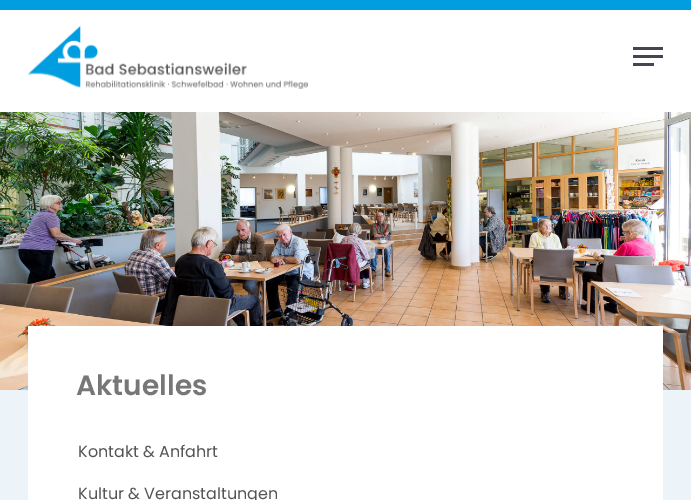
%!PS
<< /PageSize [691 500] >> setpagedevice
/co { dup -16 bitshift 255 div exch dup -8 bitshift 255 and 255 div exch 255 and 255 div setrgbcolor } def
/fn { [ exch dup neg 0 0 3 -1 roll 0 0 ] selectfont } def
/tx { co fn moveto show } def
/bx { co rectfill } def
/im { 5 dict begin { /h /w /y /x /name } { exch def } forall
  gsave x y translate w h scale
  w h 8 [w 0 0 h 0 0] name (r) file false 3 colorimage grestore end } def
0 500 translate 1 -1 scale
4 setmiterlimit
0 0 691 500 16#FFFFFF bx
0 0 691 10 16#009EE0 bx
(media/1.raw) 28 26 280 63 im
633 47 30 3 16#45464F bx
633 55 30 3 16#45464F bx
633 63 21 3 16#45464F bx
(media/2.raw) 0 112 691 278 im
0 390 691 110 16#ECF3F9 bx
28 326 635 174 16#FFFFFF bx
(Aktuelles) 76 395 /Poppins-SemiBold 28 16#777777 tx
(Kontakt & Anfahrt) 78 457 /Poppins-Regular 16 16#555555 tx
(Kultur & Veranstaltungen) 78 499 /Poppins-Regular 16 16#555555 tx
showpage
